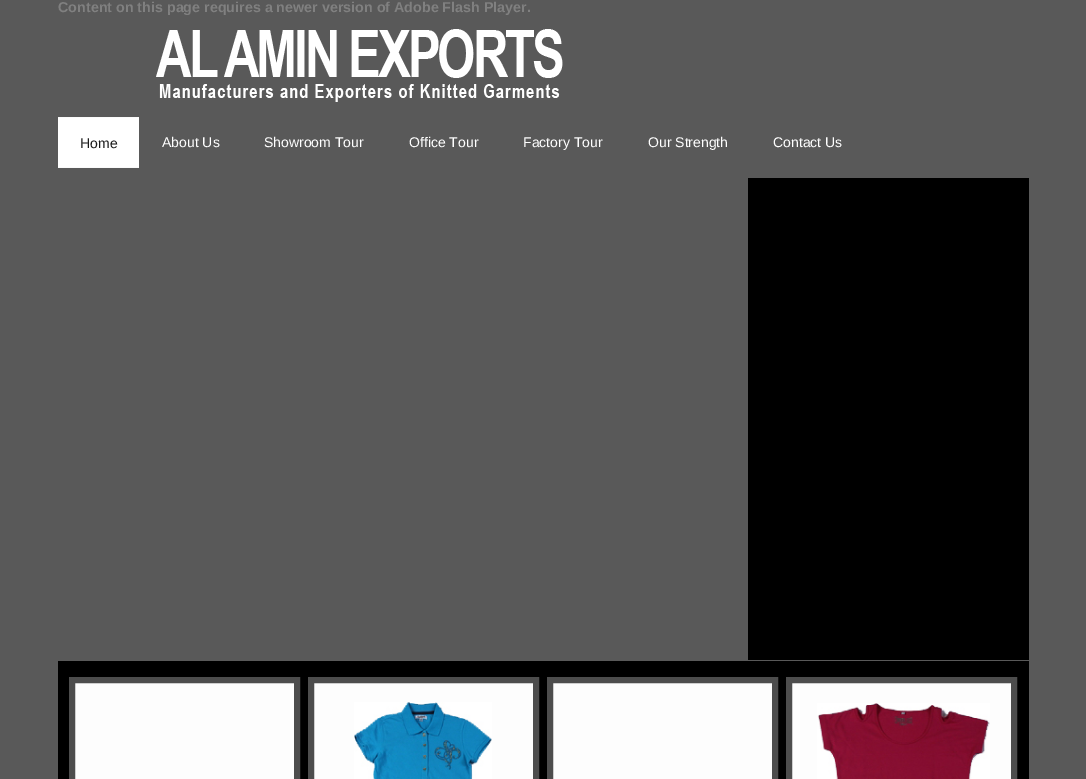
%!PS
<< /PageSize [1086 779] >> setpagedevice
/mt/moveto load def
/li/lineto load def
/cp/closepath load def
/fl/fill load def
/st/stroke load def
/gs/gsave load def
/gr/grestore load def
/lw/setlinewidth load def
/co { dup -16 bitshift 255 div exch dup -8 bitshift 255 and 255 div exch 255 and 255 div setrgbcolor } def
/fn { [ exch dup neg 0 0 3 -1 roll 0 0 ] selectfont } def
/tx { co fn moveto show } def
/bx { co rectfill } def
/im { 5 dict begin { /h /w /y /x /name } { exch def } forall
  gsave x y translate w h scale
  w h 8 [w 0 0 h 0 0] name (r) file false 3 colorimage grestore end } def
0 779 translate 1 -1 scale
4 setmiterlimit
0 0 1086 779 16#595959 bx
(media/1.raw) 156 29 407 73 im
58 118 81 49 16#FFFFFF bx
58 117 81 1 16#FAFAFA bx
58 167 81 1 16#FAFAFA bx
748 178 281 482 16#000000 bx
58 661 971 118 16#000000 bx
16#FDFDFD co
72 680 mt 297 680 li 297 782 li 72 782 li cp gs fl gr
16#4D4D4D co
6 lw
st
16#FDFDFD co
311 680 mt 536 680 li 536 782 li 311 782 li cp gs fl gr
16#4D4D4D co
st
(media/2.raw) 354 702 138 77 im
16#FDFDFD co
550 680 mt 775 680 li 775 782 li 550 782 li cp gs fl gr
16#4D4D4D co
st
16#FDFDFD co
789 680 mt 1014 680 li 1014 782 li 789 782 li cp gs fl gr
16#4D4D4D co
st
(media/3.raw) 817 703 173 76 im
(Content on this page requires a newer version of Adobe Flash Player.) 58 12 /LiberationSans-Bold 14.3 16#808080 tx
(Home) 80 148 /LiberationSans-Regular 14 16#1A1A1A tx
(About Us) 162 147 /LiberationSans-Regular 14 16#FFFFFF tx
(Showroom Tour) 264 147 /LiberationSans-Regular 14 16#FFFFFF tx
(Office Tour) 409 147 /LiberationSans-Regular 14 16#FFFFFF tx
(Factory Tour) 523 147 /LiberationSans-Regular 14 16#FFFFFF tx
(Our Strength) 648 147 /LiberationSans-Regular 14 16#FFFFFF tx
(Contact Us) 773 147 /LiberationSans-Regular 14 16#FFFFFF tx
showpage
